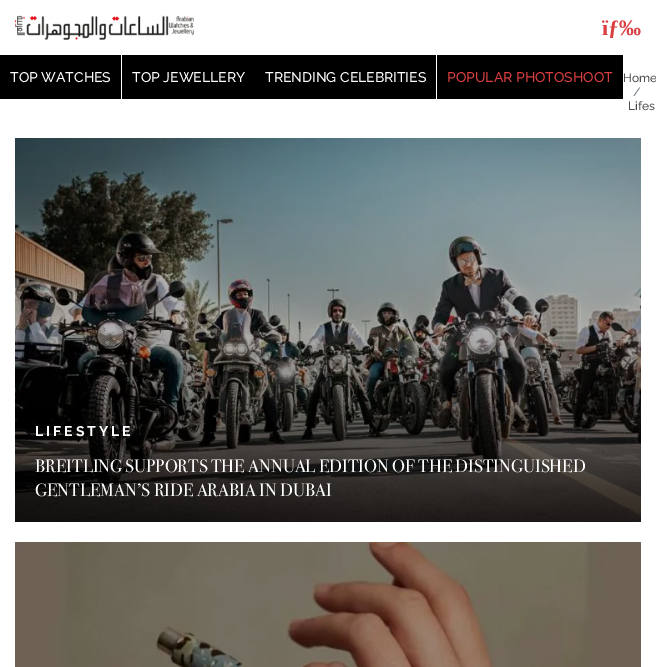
%!PS
<< /PageSize [656 667] >> setpagedevice
/mt/moveto load def
/co { dup -16 bitshift 255 div exch dup -8 bitshift 255 and 255 div exch 255 and 255 div setrgbcolor } def
/fn { [ exch dup neg 0 0 3 -1 roll 0 0 ] selectfont } def
/tx { co fn moveto show } def
/bx { co rectfill } def
/im { 5 dict begin { /h /w /y /x /name } { exch def } forall
  gsave x y translate w h scale
  w h 8 [w 0 0 h 0 0] name (r) file false 3 colorimage grestore end } def
0 667 translate 1 -1 scale
4 setmiterlimit
0 0 656 667 16#FFFFFF bx
(media/1.raw) 15 15 179 25 im
0 55 121 44 16#000000 bx
122 55 314 44 16#000000 bx
437 55 186 44 16#000000 bx
(media/2.raw) 15 138 626 384 im
(media/3.raw) 15 542 626 125 im
(ïƒ‰) 602 35 /LiberationSerif-Bold 22 16#D93E40 tx
(TOP WATCHES) 10 82 /Raleway-Medium 14 16#FFFFFF tx
(TOP JEWELLERY) 132 82 /Raleway-Medium 14 16#FFFFFF tx
(TRENDING CELEBRITIES) 265 82 /Raleway-Medium 14 16#FFFFFF tx
(POPULAR PHOTOSHOOT) 447 82 /Raleway-Medium 14 16#D93E40 tx
(Home) 623 82 /Raleway-Medium 12 16#4D4D4D tx
(/) 633 96 /Raleway-Medium 12 16#6C757D tx
(Lifes) 628 110 /Raleway-Medium 12 16#4D4D4D tx
/Raleway-Bold 14 fn
16#FFFFFF co
35 436 mt 3 0 (LIFESTYLE) ashow
(BREITLING SUPPORTS THE ANNUAL EDITION OF THE DISTINGUISHED) 35 472 /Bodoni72-Regular 18 16#FFFFFF tx
(GENTLEMAN’S RIDE ARABIA IN DUBAI) 35 496 /Bodoni72-Regular 18 16#FFFFFF tx
showpage
